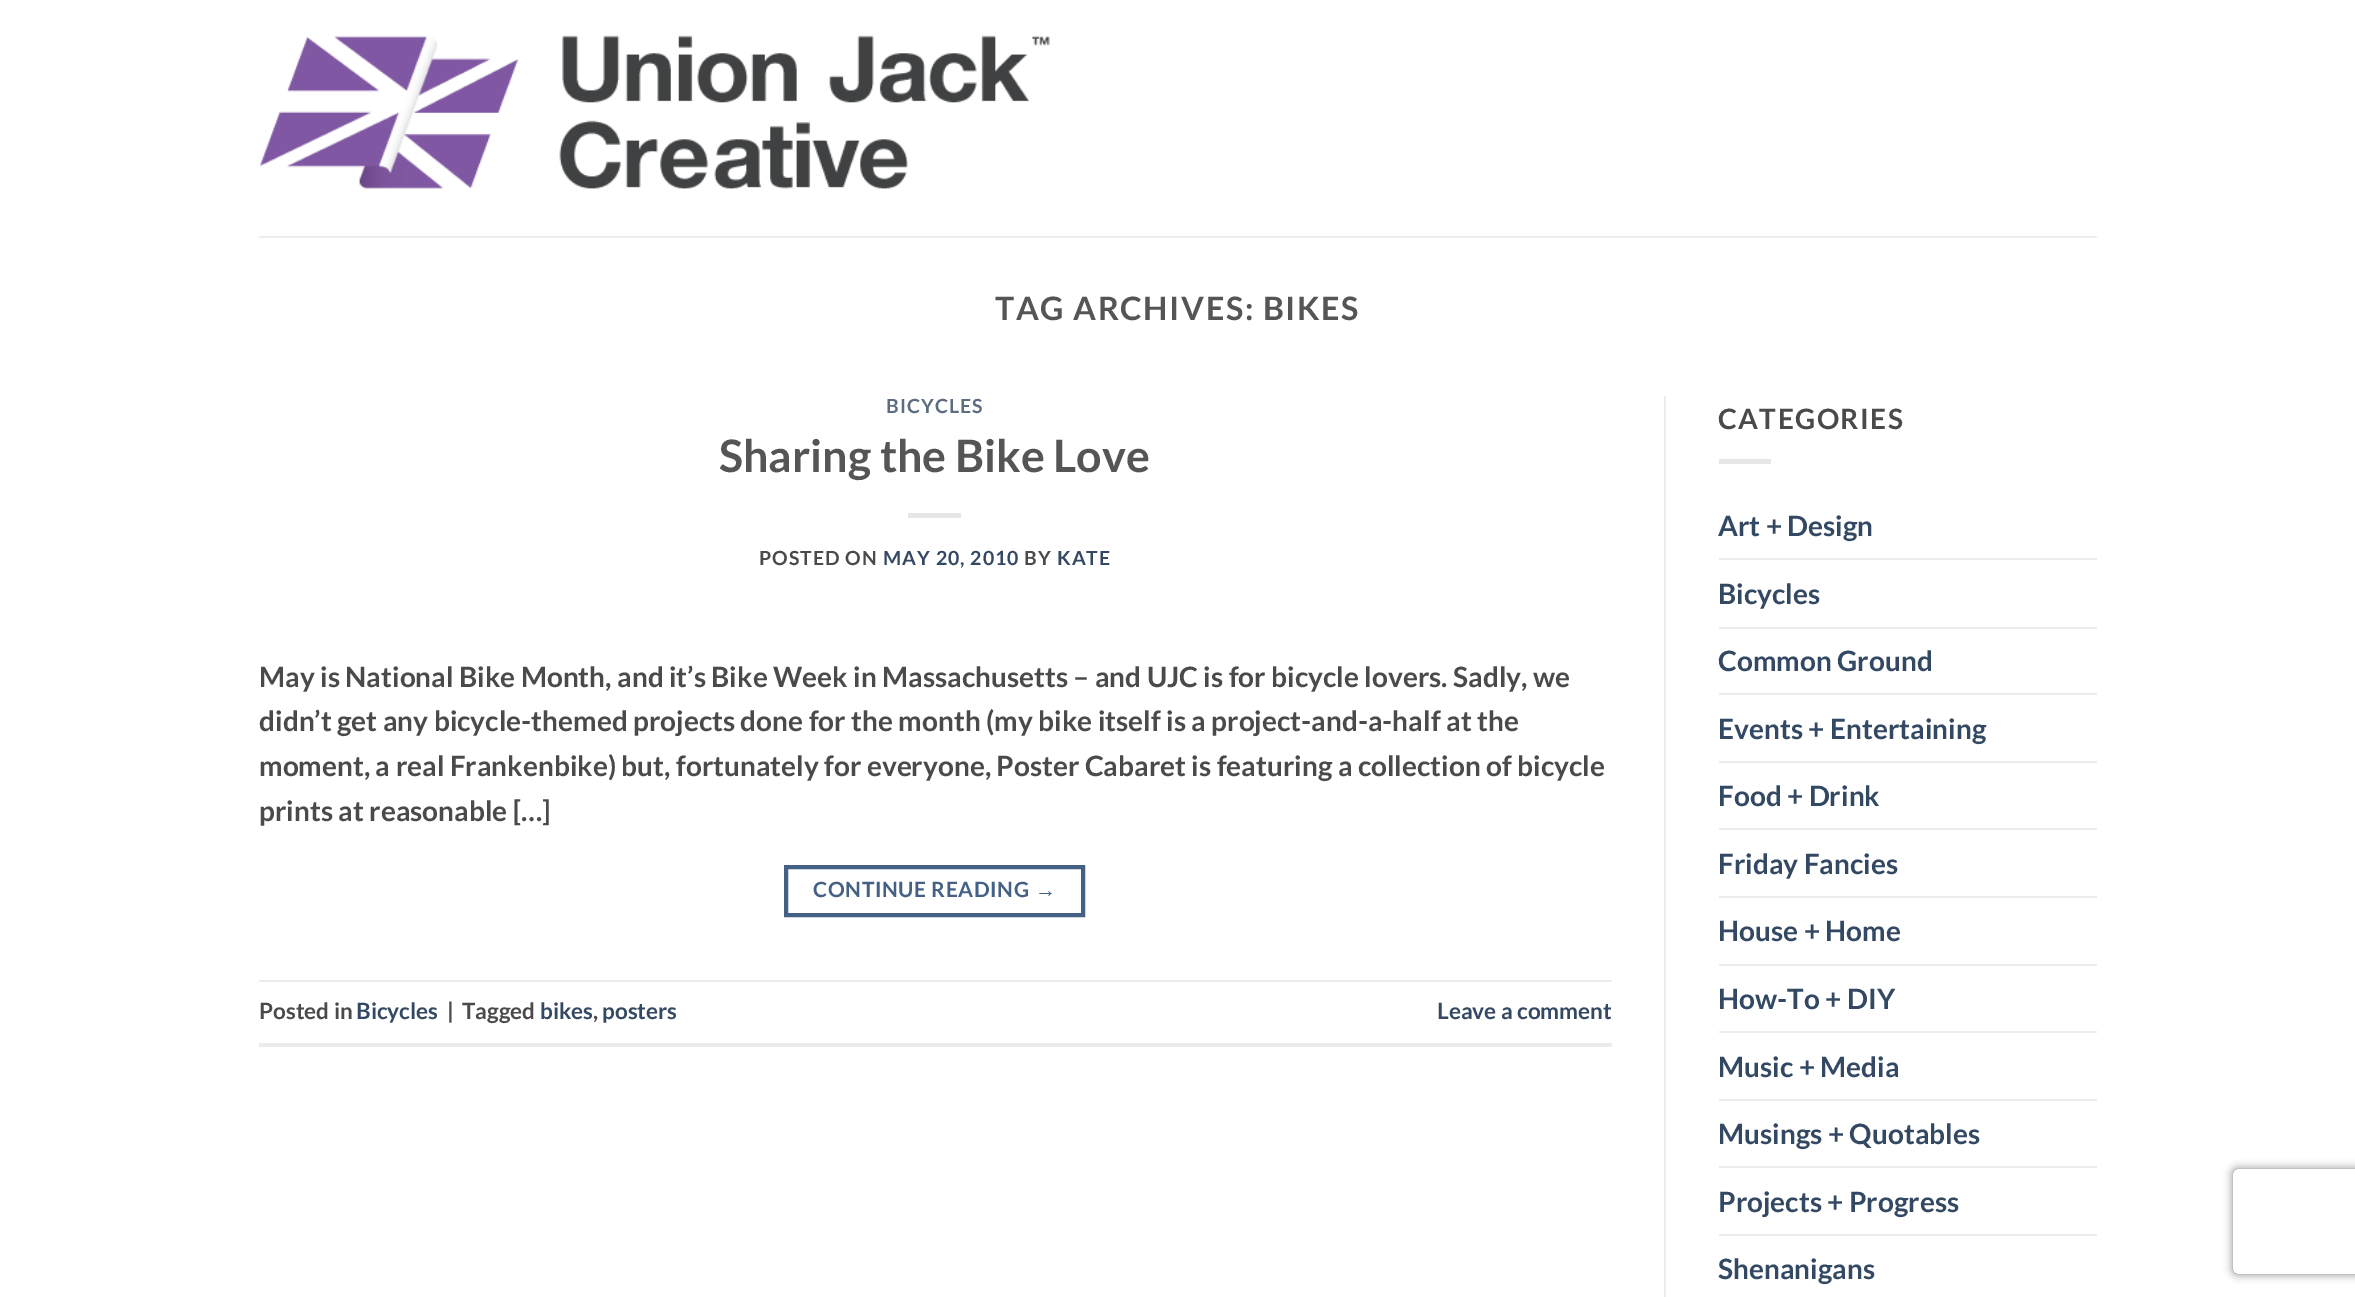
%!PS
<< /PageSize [2355 1297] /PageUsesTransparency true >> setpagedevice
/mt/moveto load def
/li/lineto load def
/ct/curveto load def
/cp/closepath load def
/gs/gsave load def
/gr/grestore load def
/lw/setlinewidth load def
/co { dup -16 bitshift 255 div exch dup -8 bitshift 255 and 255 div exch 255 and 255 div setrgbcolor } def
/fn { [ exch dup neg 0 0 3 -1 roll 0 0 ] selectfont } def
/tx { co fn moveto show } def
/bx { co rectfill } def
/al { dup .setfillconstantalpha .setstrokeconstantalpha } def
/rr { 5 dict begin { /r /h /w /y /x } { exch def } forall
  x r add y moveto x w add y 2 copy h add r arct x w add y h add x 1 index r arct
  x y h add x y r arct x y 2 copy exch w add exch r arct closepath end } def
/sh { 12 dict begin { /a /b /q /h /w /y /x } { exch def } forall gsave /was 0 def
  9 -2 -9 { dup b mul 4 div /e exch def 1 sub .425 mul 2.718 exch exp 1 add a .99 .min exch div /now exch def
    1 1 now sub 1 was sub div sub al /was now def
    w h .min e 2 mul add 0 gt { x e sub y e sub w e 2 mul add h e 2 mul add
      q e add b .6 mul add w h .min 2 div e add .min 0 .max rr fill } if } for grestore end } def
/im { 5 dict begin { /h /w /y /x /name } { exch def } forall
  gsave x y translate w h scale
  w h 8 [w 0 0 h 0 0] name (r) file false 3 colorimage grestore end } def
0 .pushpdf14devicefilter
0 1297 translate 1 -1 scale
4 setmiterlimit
0 0 2355 1297 16#FFFFFF bx
(media/1.raw) 260 35 790 154 im
259 236 1838 2 16#EDEDED bx
908 513 53 5 16#E6E6E6 bx
16#446084 co
4 lw
786 867 297 48 rectstroke
259 980 1353 2 16#ECECEC bx
259 1043 1353 4 16#ECECEC bx
1664 396 2 901 16#ECECEC bx
1719 459 52 5 16#E6E6E6 bx
1719 558 378 2 16#ECECEC bx
1719 627 378 2 16#ECECEC bx
1719 693 378 2 16#ECECEC bx
1719 761 378 2 16#ECECEC bx
1719 828 378 2 16#ECECEC bx
1719 896 378 2 16#ECECEC bx
1719 964 378 2 16#ECECEC bx
1719 1031 378 2 16#ECECEC bx
1719 1099 378 2 16#ECECEC bx
1719 1166 378 2 16#ECECEC bx
1719 1234 378 2 16#ECECEC bx
gs
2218 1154 mt 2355 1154 li 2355 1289 li 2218 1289 li cp 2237 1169 mt 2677 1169 li 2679 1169 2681 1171 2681 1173 ct 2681 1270 li 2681 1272 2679 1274 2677 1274 ct 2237 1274 li 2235 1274 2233 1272 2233 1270 ct 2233 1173 li 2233 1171 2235 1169 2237 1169 ct cp eoclip newpath
16#808080 co
2233 1169 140 105 4 4.5 1 sh
gr
/Lato-Bold 32.25 fn
16#555555 co
995 320 mt 1.6 0 (TAG ARCHIVES: BIKES) ashow
/Lato-Bold 19.5 fn
16#5C6D81 co
886 413 mt 1 0 (BICYCLES) ashow
(Sharing the Bike Love) 719 472 /Lato-Bold 44.75 16#555555 tx
/Lato-Bold 19.5 fn
16#4A4A4A co
759 565 mt 1 0 (POSTED ON) ashow
16#334862 co
883 565 mt 1 0 (MAY 20, 2010) ashow
16#4A4A4A co
1024 565 mt 1 0 (BY) ashow
16#334862 co
1057 565 mt 1 0 (KATE) ashow
(May is National Bike Month, and it’s Bike Week in Massachusetts – and UJC is for bicycle lovers. Sadly, we) 259 687 /Lato-Bold 28 16#4A4A4A tx
(didn’t get any bicycle-themed projects done for the month \(my bike itself is a project-and-a-half at the) 259 731 /Lato-Bold 28 16#4A4A4A tx
(moment, a real Frankenbike\) but, fortunately for everyone, Poster Cabaret is featuring a collection of bicycle) 259 776 /Lato-Bold 28 16#4A4A4A tx
(prints at reasonable […]) 259 821 /Lato-Bold 28 16#4A4A4A tx
/Lato-Bold 21 fn
16#446084 co
813 897 mt .6 0 (CONTINUE READING) ashow
/LiberationSans-Bold 21 fn
1035 897 mt .6 0 (→) ashow
(Posted in) 259 1019 /Lato-Bold 22.5 16#4A4A4A tx
(Bicycles) 356 1019 /Lato-Bold 22.5 16#334862 tx
(|) 447 1019 /Lato-Bold 22.5 16#4A4A4A tx
(Tagged) 462 1019 /Lato-Bold 22.5 16#4A4A4A tx
(bikes) 540 1019 /Lato-Bold 22.5 16#334862 tx
(,) 593 1019 /Lato-Bold 22.5 16#4A4A4A tx
(posters) 602 1019 /Lato-Bold 22.5 16#334862 tx
(Leave a comment) 1437 1019 /Lato-Bold 22.5 16#334862 tx
/Lato-Bold 28 fn
16#4A4A4A co
1718 429 mt 1.4 0 (CATEGORIES) ashow
(Art + Design) 1718 536 /Lato-Bold 28 16#334862 tx
(Bicycles) 1718 604 /Lato-Bold 28 16#334862 tx
(Common Ground) 1718 671 /Lato-Bold 28 16#334862 tx
(Events + Entertaining) 1718 739 /Lato-Bold 28 16#334862 tx
(Food + Drink) 1718 806 /Lato-Bold 28 16#334862 tx
(Friday Fancies) 1718 874 /Lato-Bold 28 16#334862 tx
(House + Home) 1718 941 /Lato-Bold 28 16#334862 tx
(How-To + DIY) 1718 1009 /Lato-Bold 28 16#334862 tx
(Music + Media) 1718 1077 /Lato-Bold 28 16#334862 tx
(Musings + Quotables) 1718 1144 /Lato-Bold 28 16#334862 tx
(Projects + Progress) 1718 1212 /Lato-Bold 28 16#334862 tx
(Shenanigans) 1718 1279 /Lato-Bold 28 16#334862 tx
.poppdf14devicefilter showpage
